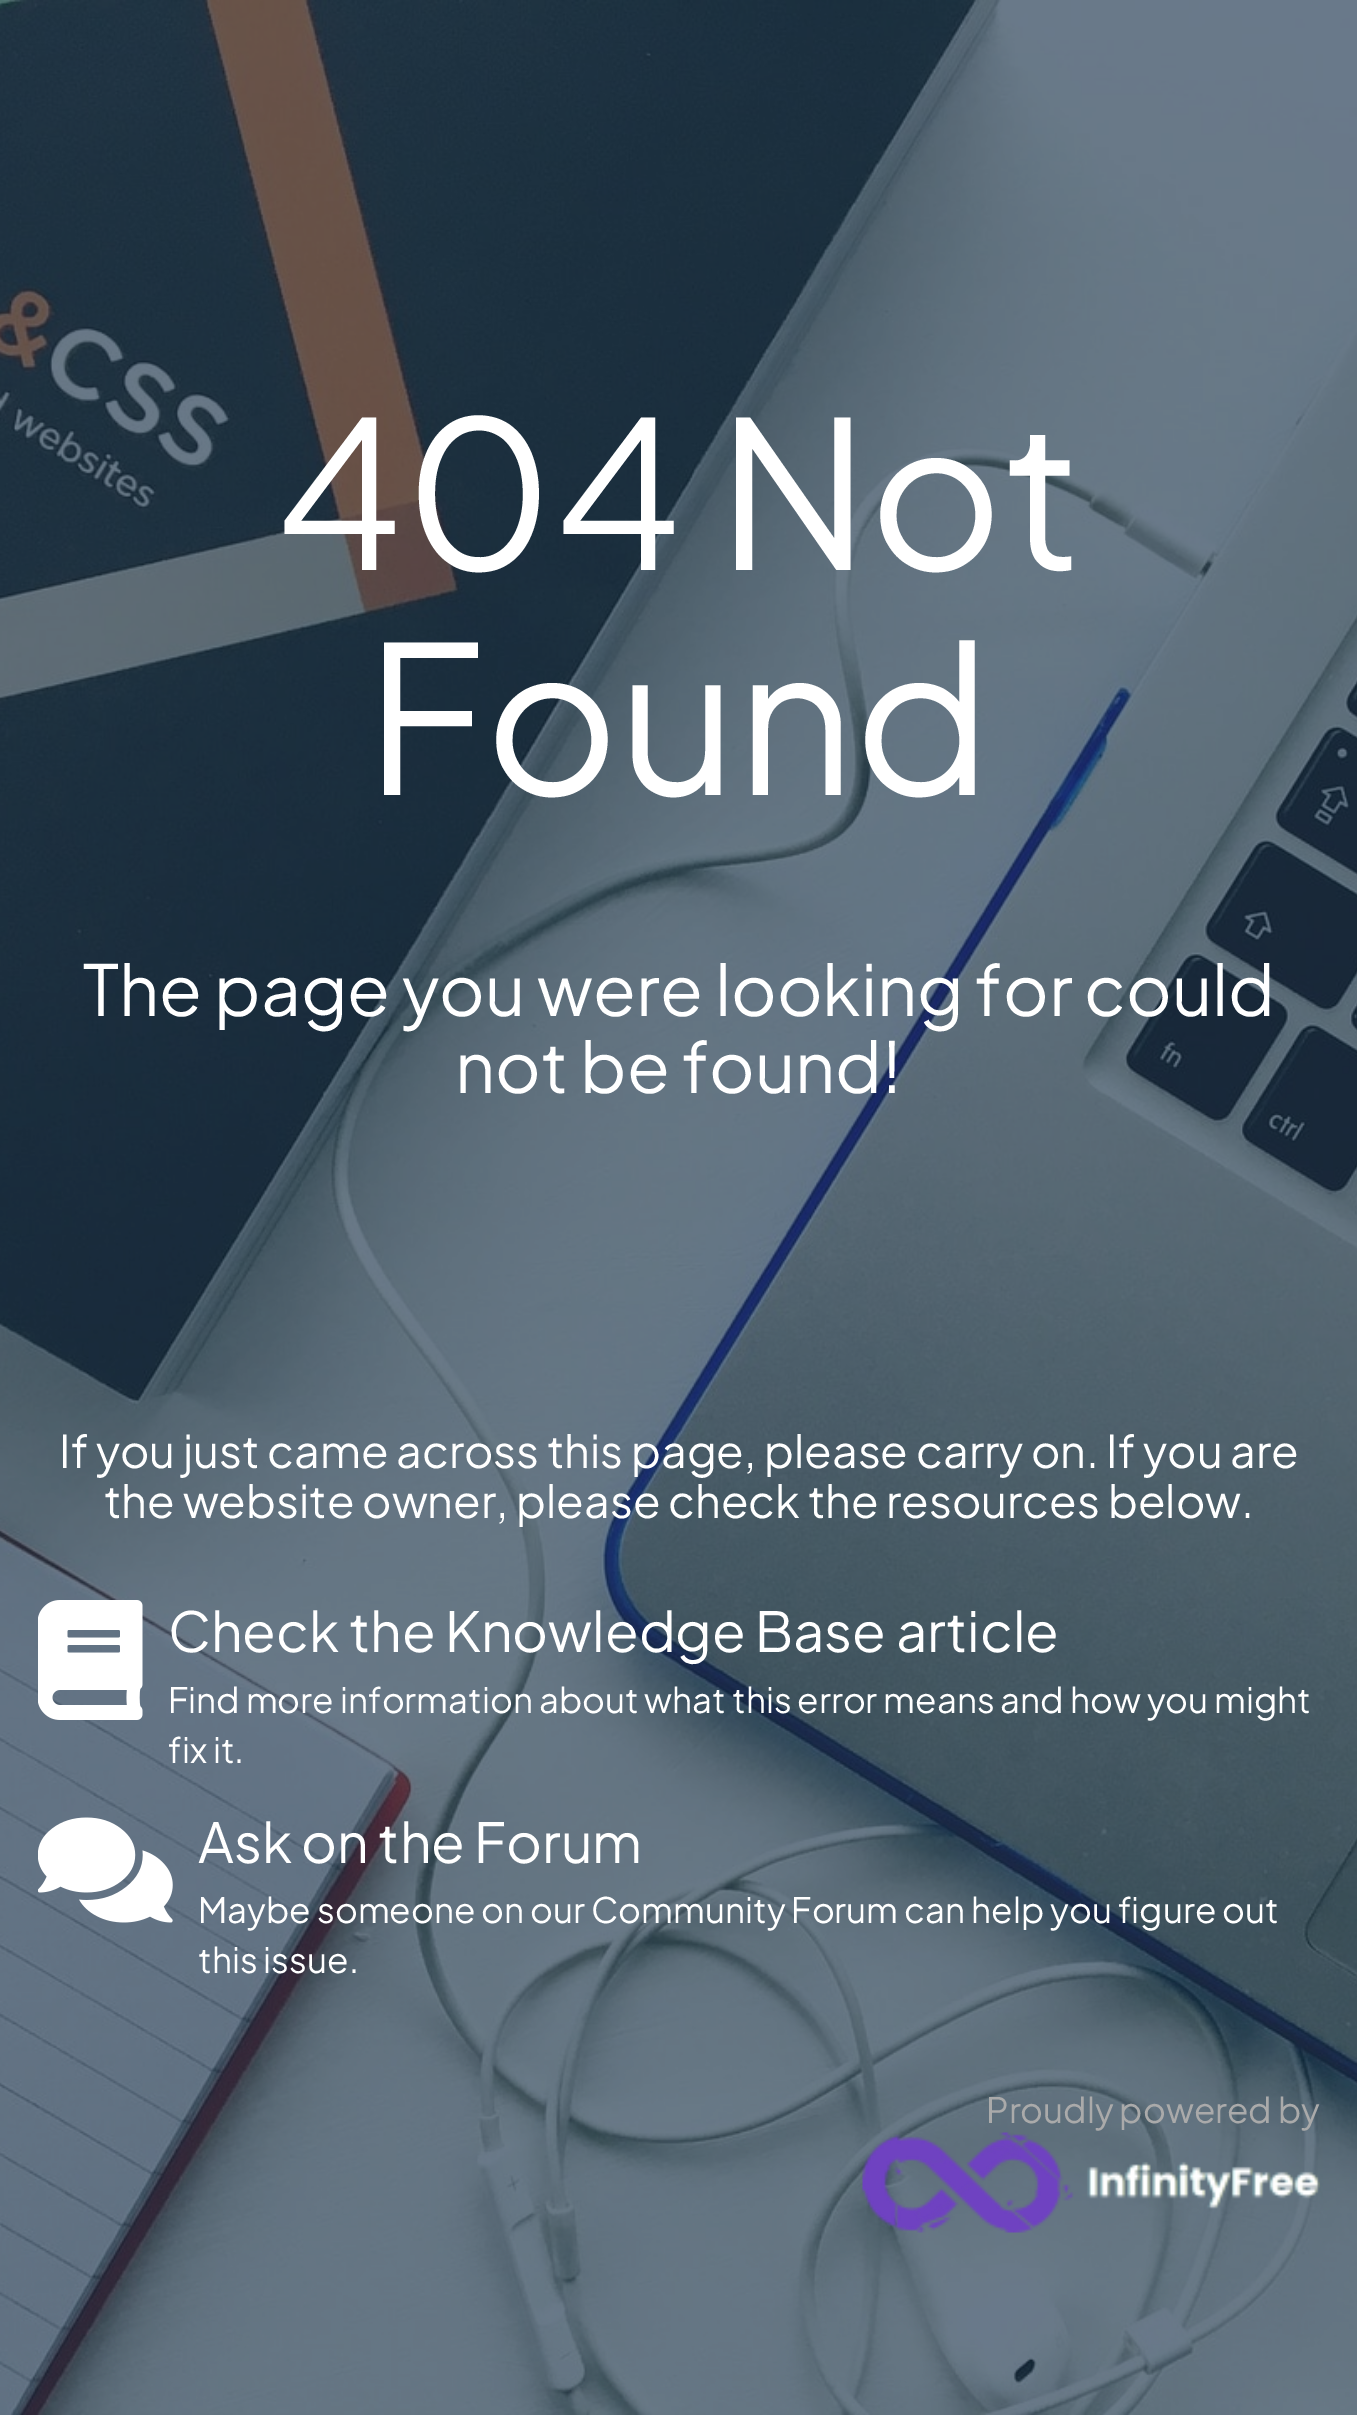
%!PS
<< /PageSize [1357 2415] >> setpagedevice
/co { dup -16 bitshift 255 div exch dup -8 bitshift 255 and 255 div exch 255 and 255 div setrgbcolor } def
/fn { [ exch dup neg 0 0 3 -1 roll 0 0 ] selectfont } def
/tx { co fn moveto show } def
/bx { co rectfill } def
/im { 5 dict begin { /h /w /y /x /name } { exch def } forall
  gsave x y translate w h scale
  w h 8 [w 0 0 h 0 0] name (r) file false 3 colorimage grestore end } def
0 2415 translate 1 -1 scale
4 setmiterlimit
0 0 1357 2415 16#FFFFFF bx
(media/1.raw) 0 0 1357 2415 im
(media/2.raw) 38 1600 105 120 im
(media/3.raw) 38 1817 135 106 im
(media/4.raw) 862 2132 458 101 im
(404 Not) 275 570 /PlusJakartaSans-Regular 205 16#FFFFFF tx
(Found) 366 795 /PlusJakartaSans-Regular 205 16#FFFFFF tx
(The page you were looking for could) 83 1016 /PlusJakartaSans-Regular 70 16#FFFFFF tx
(not be found!) 455 1093 /PlusJakartaSans-Regular 70 16#FFFFFF tx
(If you just came across this page, please carry on. If you are) 59 1468 /PlusJakartaSans-Regular 45 16#FFFFFF tx
(the website owner, please check the resources below.) 104 1518 /PlusJakartaSans-Regular 45 16#FFFFFF tx
(Check the Knowledge Base article) 168 1652 /PlusJakartaSans-Regular 55 16#FFFFFF tx
(Find more information about what this error means and how you might) 168 1713 /PlusJakartaSans-Regular 35 16#FFFFFF tx
(fix it.) 168 1763 /PlusJakartaSans-Regular 35 16#FFFFFF tx
(Ask on the Forum) 198 1863 /PlusJakartaSans-Regular 55 16#FFFFFF tx
(Maybe someone on our Community Forum can help you figure out) 198 1923 /PlusJakartaSans-Regular 35 16#FFFFFF tx
(this issue.) 198 1973 /PlusJakartaSans-Regular 35 16#FFFFFF tx
(Proudly powered by) 986 2123 /PlusJakartaSans-Regular 35 16#AAAAAA tx
showpage
